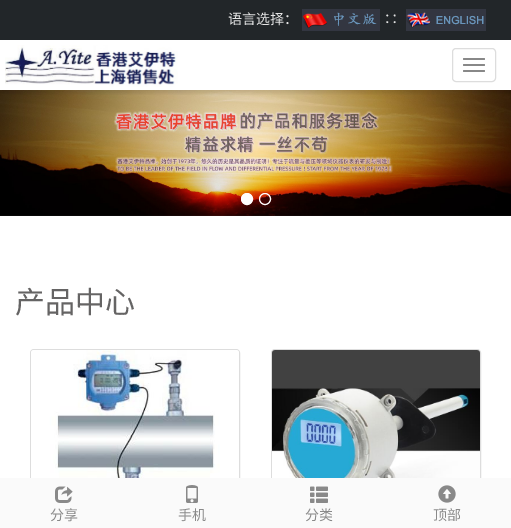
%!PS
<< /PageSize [511 528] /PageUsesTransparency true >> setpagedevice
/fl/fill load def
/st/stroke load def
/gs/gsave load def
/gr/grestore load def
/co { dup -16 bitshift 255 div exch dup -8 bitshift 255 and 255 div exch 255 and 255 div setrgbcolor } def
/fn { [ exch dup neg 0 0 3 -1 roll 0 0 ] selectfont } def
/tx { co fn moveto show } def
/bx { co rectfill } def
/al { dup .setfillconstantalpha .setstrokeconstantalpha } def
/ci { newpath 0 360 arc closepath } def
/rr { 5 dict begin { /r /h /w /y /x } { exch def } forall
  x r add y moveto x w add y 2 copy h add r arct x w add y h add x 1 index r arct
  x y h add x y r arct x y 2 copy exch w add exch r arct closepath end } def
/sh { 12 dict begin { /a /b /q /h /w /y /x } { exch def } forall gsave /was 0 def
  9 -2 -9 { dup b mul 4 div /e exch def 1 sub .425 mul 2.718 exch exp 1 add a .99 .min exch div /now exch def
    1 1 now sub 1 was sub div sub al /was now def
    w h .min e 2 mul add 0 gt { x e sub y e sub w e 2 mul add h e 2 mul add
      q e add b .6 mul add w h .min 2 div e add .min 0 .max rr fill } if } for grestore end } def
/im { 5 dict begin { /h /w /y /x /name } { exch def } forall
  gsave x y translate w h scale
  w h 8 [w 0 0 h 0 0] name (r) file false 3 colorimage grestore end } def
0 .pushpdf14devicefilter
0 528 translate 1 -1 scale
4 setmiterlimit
0 0 511 528 16#FFFFFF bx
0 0 511 40 16#222629 bx
(media/1.raw) 302 9 78 22 im
(media/2.raw) 406 9 80 22 im
(media/4.raw) 0 90 511 126 im
gs
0 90 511 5 rectclip
16#000000 co
0 43 511 50 0 2 .1 sh
gr
(media/3.raw) 5 45 173 42 im
16#DDDDDD co
452.5 48.5 43 33 3.5 rr st
16#888888 co
463 58 22 2 1 rr fl
463 64 22 2 1 rr fl
463 70 22 2 1 rr fl
16#FFFFFF co
247 199 5.5 ci gs fl gr
st
265 199 5.5 ci st
16#DDDDDD co
30.5 349.5 209 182 3.5 rr st
(media/5.raw) 31 350 208 128 im
271.5 349.5 209 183 3.5 rr st
(media/6.raw) 272 350 208 128 im
0 478 511 50 16#FAFAFA bx
(media/7.raw) 55 486 18 17 im
(media/8.raw) 186 485 12 18 im
(media/9.raw) 310 486 18 17 im
(media/10.raw) 438 485 18 18 im
(语言选择：) 228 24 /NotoSansCJKSC-Regular 14 16#E4E4E4 tx
(∷) 384 24 /NotoSansCJKSC-Regular 14 16#E4E4E4 tx
(产品中心) 15 313 /NotoSansCJKSC-Regular 30 16#656464 tx
(分享) 50 520 /NotoSansCJKSC-Regular 14 16#898989 tx
(手机) 178 520 /NotoSansCJKSC-Regular 14 16#898989 tx
(分类) 305 520 /NotoSansCJKSC-Regular 14 16#898989 tx
(顶部) 433 520 /NotoSansCJKSC-Regular 14 16#898989 tx
.poppdf14devicefilter showpage
